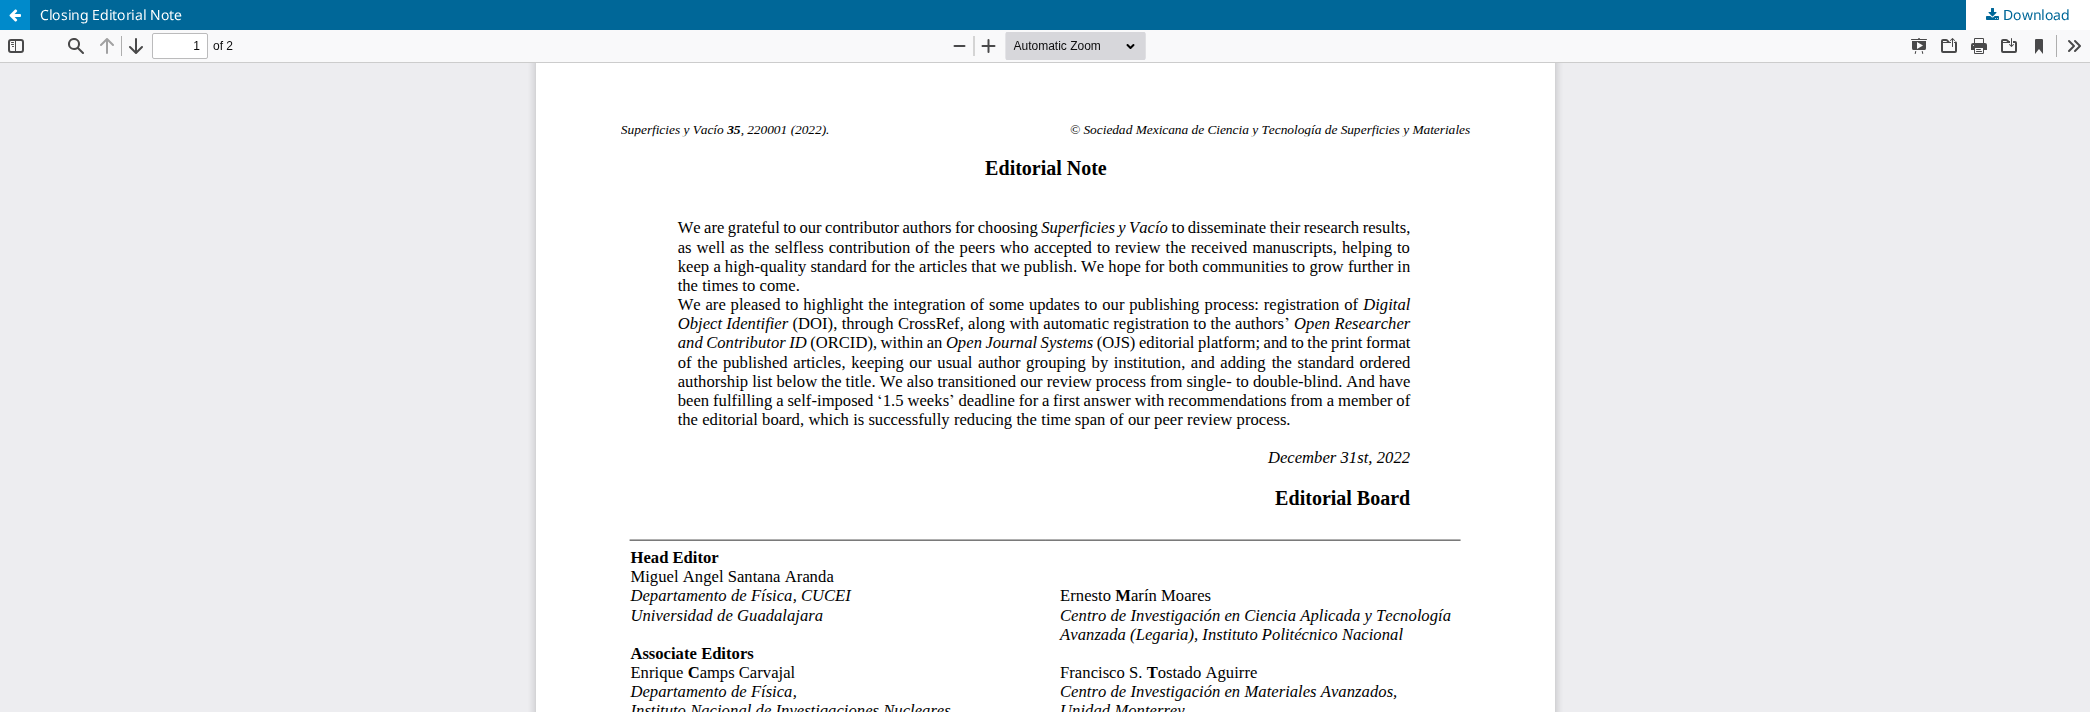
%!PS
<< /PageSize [2090 712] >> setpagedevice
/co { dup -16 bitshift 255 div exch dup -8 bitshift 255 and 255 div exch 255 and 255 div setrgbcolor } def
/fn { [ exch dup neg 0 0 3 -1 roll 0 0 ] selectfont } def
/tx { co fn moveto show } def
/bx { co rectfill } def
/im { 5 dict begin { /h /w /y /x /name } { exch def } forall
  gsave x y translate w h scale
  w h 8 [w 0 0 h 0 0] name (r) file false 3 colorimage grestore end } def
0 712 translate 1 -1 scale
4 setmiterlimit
0 0 2090 712 16#FFFFFF bx
30 0 1936 30 16#006798 bx
0 0 30 30 16#008ACB bx
(media/1.raw) 9 9 12 13 im
(media/2.raw) 1986 8 13 12 im
(media/3.raw) 0 30 2090 682 im
(Closing Editorial Note) 40 20 /NotoSans-Regular 14 16#FFFFFF tx
(Download) 2003 20 /NotoSans-Regular 14 16#006798 tx
showpage
